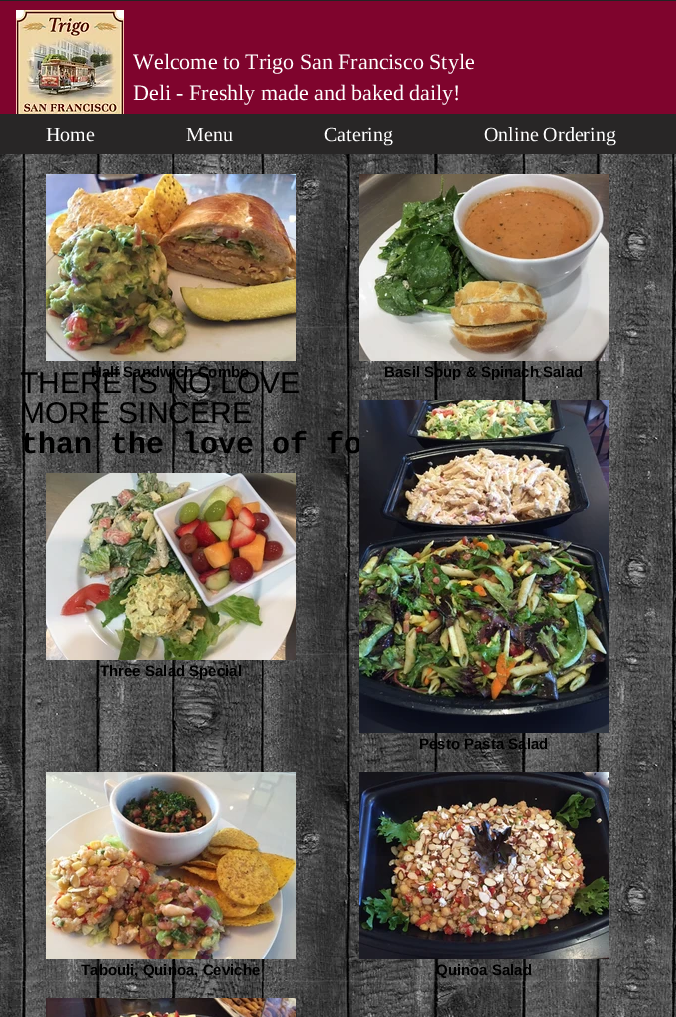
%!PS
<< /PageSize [676 1017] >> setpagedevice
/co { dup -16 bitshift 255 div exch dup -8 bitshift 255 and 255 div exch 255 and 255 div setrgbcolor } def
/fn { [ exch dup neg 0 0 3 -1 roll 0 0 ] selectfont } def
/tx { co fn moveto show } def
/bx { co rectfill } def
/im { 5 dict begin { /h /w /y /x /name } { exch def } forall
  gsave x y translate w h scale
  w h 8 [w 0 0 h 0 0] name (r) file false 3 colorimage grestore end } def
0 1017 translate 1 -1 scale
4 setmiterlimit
0 0 676 1017 16#FFFFFF bx
0 0 676 1 16#232323 bx
0 1 676 113 16#7F042D bx
(media/1.raw) 16 10 108 104 im
0 114 676 40 16#282626 bx
(media/9.raw) 0 154 676 863 im
(media/2.raw) 46 174 250 187 im
(media/3.raw) 359 174 250 187 im
(media/4.raw) 46 473 250 187 im
(media/6.raw) 46 772 250 187 im
(media/7.raw) 359 772 250 187 im
(media/8.raw) 46 998 250 19 im
(Welcome to Trigo San Francisco Style) 133 69 /LiberationSerif-Regular 22 16#FFFFFF tx
(Deli - Freshly made and baked daily!) 133 100 /LiberationSerif-Regular 22 16#FFFFFF tx
(Home) 46 141 /LiberationSerif-Regular 20 16#FFFFFF tx
(Menu) 186 141 /LiberationSerif-Regular 20 16#FFFFFF tx
(Catering) 324 141 /LiberationSerif-Regular 20 16#FFFFFF tx
(Online Ordering) 484 141 /LiberationSerif-Regular 20 16#FFFFFF tx
(Basil Soup & Spinach Salad) 384 377 /LiberationSans-Bold 15 16#000000 tx
(Three Salad Special) 100 676 /LiberationSans-Bold 15 16#000000 tx
(Pesto Pasta Salad) 419 749 /LiberationSans-Bold 15 16#000000 tx
(Tabouli, Quinoa, Ceviche) 81 975 /LiberationSans-Bold 15 16#000000 tx
(Quinoa Salad) 436 975 /LiberationSans-Bold 15 16#000000 tx
(THERE IS NO LOVE) 20 393 /LiberationSans-Regular 30 16#000000 tx
(Half Sandwich Combo) 91 377 /LiberationSans-Bold 15 16#000000 tx
(MORE SINCERE) 20 423 /LiberationSans-Regular 30 16#000000 tx
(than the love of fo) 20 453 /LiberationMono-Bold 30 16#000000 tx
(media/5.raw) 359 400 250 333 im
showpage
